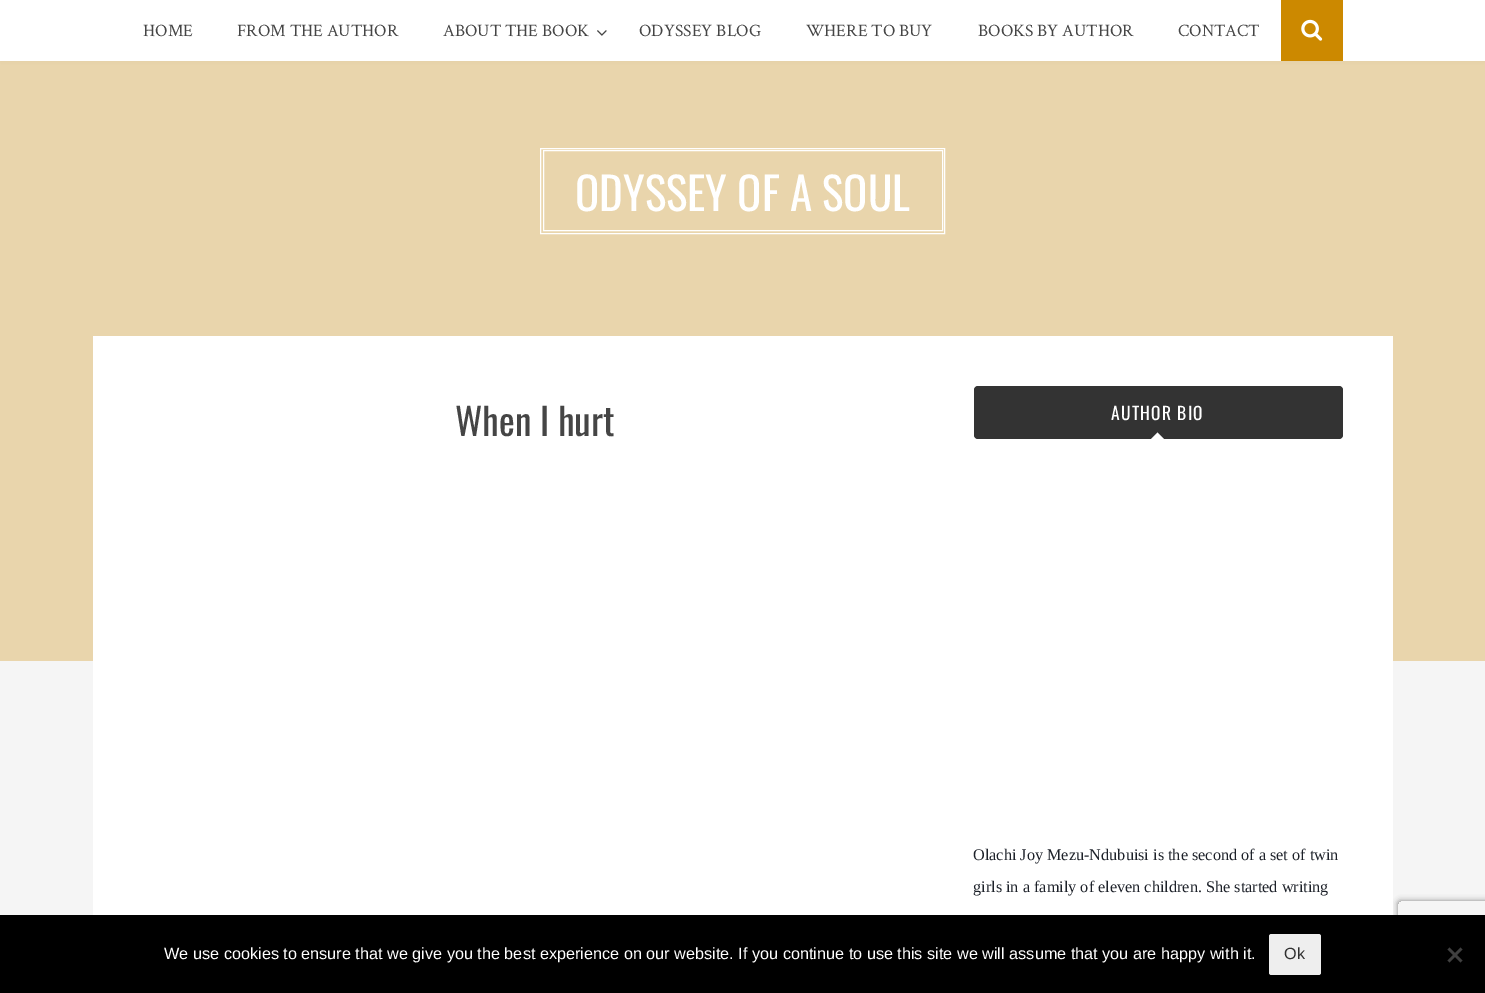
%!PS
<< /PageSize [1485 993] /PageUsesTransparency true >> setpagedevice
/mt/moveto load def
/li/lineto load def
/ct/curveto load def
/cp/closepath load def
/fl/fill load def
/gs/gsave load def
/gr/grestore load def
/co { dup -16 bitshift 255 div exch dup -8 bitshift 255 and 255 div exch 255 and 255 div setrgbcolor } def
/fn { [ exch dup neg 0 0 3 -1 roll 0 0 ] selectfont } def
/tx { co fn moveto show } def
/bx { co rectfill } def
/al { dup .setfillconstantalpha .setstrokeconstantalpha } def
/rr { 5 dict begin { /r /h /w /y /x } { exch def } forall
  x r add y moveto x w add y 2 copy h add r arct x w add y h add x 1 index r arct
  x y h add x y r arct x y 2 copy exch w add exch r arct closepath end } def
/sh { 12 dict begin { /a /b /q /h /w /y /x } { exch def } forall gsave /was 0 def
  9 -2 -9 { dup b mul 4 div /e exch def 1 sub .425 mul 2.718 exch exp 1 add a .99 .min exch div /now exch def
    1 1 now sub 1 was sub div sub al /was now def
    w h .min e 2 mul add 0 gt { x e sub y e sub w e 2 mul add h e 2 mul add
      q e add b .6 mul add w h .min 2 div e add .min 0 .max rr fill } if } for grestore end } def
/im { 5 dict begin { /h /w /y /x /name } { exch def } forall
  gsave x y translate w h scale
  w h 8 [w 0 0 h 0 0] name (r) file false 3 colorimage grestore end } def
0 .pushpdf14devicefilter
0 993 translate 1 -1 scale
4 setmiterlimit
0 0 1485 993 16#F5F5F5 bx
0 61 1485 600 16#E9D5AC bx
16#C2AE85 co
0 1 1485 62 0 2.5 .1 sh
0 0 1485 61 16#FFFFFF bx
(media/1.raw) 597 30 10 6 im
1281 0 62 61 16#CC8900 bx
(media/2.raw) 1301 19 22 22 im
16#FFFFFF co
540.5 148.5 404 85 rectstroke
543.5 150.5 399 80 rectstroke
gs
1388 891 mt 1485 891 li 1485 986 li 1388 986 li cp 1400.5 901 mt 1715.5 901 li 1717 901 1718 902 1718 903.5 ct 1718 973.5 li 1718 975 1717 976 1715.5 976 ct 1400.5 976 li 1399 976 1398 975 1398 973.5 ct 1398 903.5 li 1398 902 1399 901 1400.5 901 ct cp eoclip newpath
16#808080 co
1398 901 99 75 2.5 3 1 sh
gr
93 336 1300 579 16#FFFFFF bx
16#333333 co
974 386 369 53 4 rr fl
16#FFFFFF co
1164 439 mt 1151 439 li 1157.5 432.5 li cp fl
0 915 1485 78 16#000000 bx
16#EEEEEE co
1269 934 52 41 2.5 rr fl
16#404040 co
1460.5 947.5 mt 1462.5 949.5 li 1449.5 962.5 li 1447.5 960.5 li cp fl
1447.5 949.5 mt 1449.5 947.5 li 1462.5 960.5 li 1460.5 962.5 li cp fl
(HOME) 143 36 /CrimsonText-Regular 17.5 16#454545 tx
(FROM THE AUTHOR) 237 36 /CrimsonText-Regular 17.5 16#454545 tx
(ABOUT THE BOOK) 443 36 /CrimsonText-Regular 17.5 16#454545 tx
(ODYSSEY BLOG) 639 36 /CrimsonText-Regular 17.5 16#454545 tx
(WHERE TO BUY) 806 36 /CrimsonText-Regular 17.5 16#454545 tx
(BOOKS BY AUTHOR) 978 36 /CrimsonText-Regular 17.5 16#454545 tx
(CONTACT) 1178 36 /CrimsonText-Regular 17.5 16#454545 tx
(ODYSSEY OF A SOUL) 575 211 /Oswald-Regular 45 16#FFFFFF tx
(When I hurt) 455 436 /Oswald-Regular 37.5 16#454545 tx
/Oswald-Regular 17.5 fn
16#FFFFFF co
1111 420 mt 1.25 0 (AUTHOR BIO) ashow
(Olachi Joy Mezu-Ndubuisi is the second of a set of twin) 973 860 /LiberationSerif-Regular 16.25 16#1D2129 tx
(girls in a family of eleven children. She started writing) 973 892 /LiberationSerif-Regular 16.25 16#1D2129 tx
(We use cookies to ensure that we give you the best experience on our website. If you continue to use this site we will assume that you are happy with it.) 164 959 /LiberationSans-Regular 16.25 16#FFFFFF tx
(Ok) 1284 959 /LiberationSans-Regular 16.25 16#303030 tx
.poppdf14devicefilter showpage
